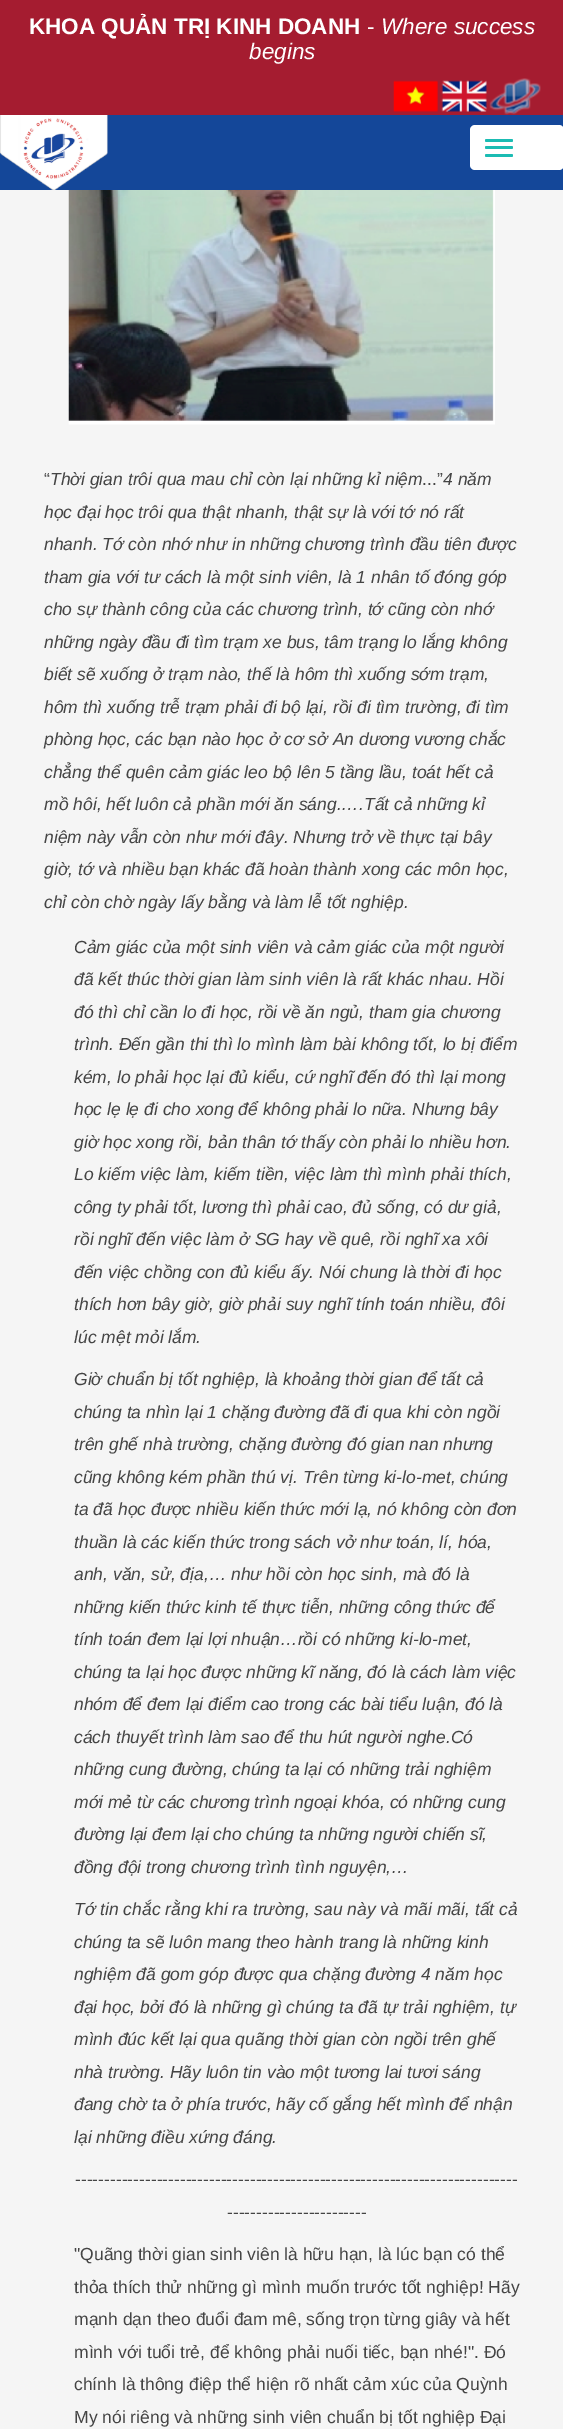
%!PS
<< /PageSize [563 2429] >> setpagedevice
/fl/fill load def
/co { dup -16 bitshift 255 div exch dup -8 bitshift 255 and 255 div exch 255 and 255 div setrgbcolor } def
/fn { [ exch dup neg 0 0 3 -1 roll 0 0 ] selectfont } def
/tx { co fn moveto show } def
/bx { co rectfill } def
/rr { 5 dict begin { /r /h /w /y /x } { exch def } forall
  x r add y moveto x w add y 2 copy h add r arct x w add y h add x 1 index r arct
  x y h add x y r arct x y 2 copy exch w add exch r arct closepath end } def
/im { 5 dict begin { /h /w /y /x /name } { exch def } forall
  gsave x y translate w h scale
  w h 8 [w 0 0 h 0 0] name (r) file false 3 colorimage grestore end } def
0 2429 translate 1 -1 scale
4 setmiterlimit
0 0 563 2429 16#F5F5F5 bx
0 115 563 75 16#144799 bx
0 0 563 115 16#A51C30 bx
(media/1.raw) 393 80 45 32 im
(media/2.raw) 441 80 46 32 im
(media/3.raw) 489 78 52 37 im
(media/4.raw) 0 115 108 75 im
16#FFFFFF co
470 125 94 45 5 rr fl
16#1BBCB3 co
485 139 28 3 1.5 rr fl
485 146 28 3 1.5 rr fl
485 154 28 3 1.5 rr fl
(media/5.raw) 68 190 427 235 im
(KHOA QUẢN TRỊ KINH DOANH) 29 34 /LiberationSans-Bold 22.5 16#FFFFFF tx
(-) 367 34 /LiberationSans-Regular 22.5 16#FFFFFF tx
(Where success) 381 34 /LiberationSans-Italic 22.5 16#FFFFFF tx
(begins) 249 59 /LiberationSans-Italic 22.5 16#FFFFFF tx
(“) 44 485 /LiberationSans-Regular 17.5 16#444444 tx
(Thời gian trôi qua mau chỉ còn lại những kỉ niệm) 50 485 /LiberationSans-Italic 17.5 16#444444 tx
(...”) 422 485 /LiberationSans-Regular 17.5 16#444444 tx
(4 năm) 443 485 /LiberationSans-Italic 17.5 16#444444 tx
(học đại học trôi qua thật nhanh, thật sự là với tớ nó rất) 44 518 /LiberationSans-Italic 17.5 16#444444 tx
(nhanh. Tớ còn nhớ như in những chương trình đầu tiên được) 44 550 /LiberationSans-Italic 17.5 16#444444 tx
(tham gia với tư cách là một sinh viên, là 1 nhân tố đóng góp) 44 583 /LiberationSans-Italic 17.5 16#444444 tx
(cho sự thành công của các chương trình, tớ cũng còn nhớ) 44 615 /LiberationSans-Italic 17.5 16#444444 tx
(những ngày đầu đi tìm trạm xe bus, tâm trạng lo lắng không) 44 648 /LiberationSans-Italic 17.5 16#444444 tx
(biết sẽ xuống ở trạm nào, thế là hôm thì xuống sớm trạm,) 44 680 /LiberationSans-Italic 17.5 16#444444 tx
(hôm thì xuống trễ trạm phải đi bộ lại, rồi đi tìm trường, đi tìm) 44 713 /LiberationSans-Italic 17.5 16#444444 tx
(phòng học, các bạn nào học ở cơ sở An dương vương chắc) 44 745 /LiberationSans-Italic 17.5 16#444444 tx
(chẳng thể quên cảm giác leo bộ lên 5 tầng lầu, toát hết cả) 44 778 /LiberationSans-Italic 17.5 16#444444 tx
(mồ hôi, hết luôn cả phần mới ăn sáng.….Tất cả những kỉ) 44 810 /LiberationSans-Italic 17.5 16#444444 tx
(niệm này vẫn còn như mới đây. Nhưng trở về thực tại bây) 44 843 /LiberationSans-Italic 17.5 16#444444 tx
(giờ, tớ và nhiều bạn khác đã hoàn thành xong các môn học,) 44 875 /LiberationSans-Italic 17.5 16#444444 tx
(chỉ còn chờ ngày lấy bằng và làm lễ tốt nghiệp.) 44 908 /LiberationSans-Italic 17.5 16#444444 tx
(Cảm giác của một sinh viên và cảm giác của một người) 74 953 /LiberationSans-Italic 17.5 16#444444 tx
(đã kết thúc thời gian làm sinh viên là rất khác nhau. Hồi) 74 985 /LiberationSans-Italic 17.5 16#444444 tx
(đó thì chỉ cần lo đi học, rồi về ăn ngủ, tham gia chương) 74 1018 /LiberationSans-Italic 17.5 16#444444 tx
(trình. Đến gần thi thì lo mình làm bài không tốt, lo bị điểm) 74 1050 /LiberationSans-Italic 17.5 16#444444 tx
(kém, lo phải học lại đủ kiểu, cứ nghĩ đến đó thì lại mong) 74 1083 /LiberationSans-Italic 17.5 16#444444 tx
(học lẹ lẹ đi cho xong để không phải lo nữa. Nhưng bây) 74 1115 /LiberationSans-Italic 17.5 16#444444 tx
(giờ học xong rồi, bản thân tớ thấy còn phải lo nhiều hơn.) 74 1148 /LiberationSans-Italic 17.5 16#444444 tx
(Lo kiếm việc làm, kiếm tiền, việc làm thì mình phải thích,) 74 1180 /LiberationSans-Italic 17.5 16#444444 tx
(công ty phải tốt, lương thì phải cao, đủ sống, có dư giả,) 74 1213 /LiberationSans-Italic 17.5 16#444444 tx
(rồi nghĩ đến việc làm ở SG hay về quê, rồi nghĩ xa xôi) 74 1245 /LiberationSans-Italic 17.5 16#444444 tx
(đến việc chồng con đủ kiểu ấy. Nói chung là thời đi học) 74 1278 /LiberationSans-Italic 17.5 16#444444 tx
(thích hơn bây giờ, giờ phải suy nghĩ tính toán nhiều, đôi) 74 1310 /LiberationSans-Italic 17.5 16#444444 tx
(lúc mệt mỏi lắm.) 74 1343 /LiberationSans-Italic 17.5 16#444444 tx
(Giờ chuẩn bị tốt nghiệp, là khoảng thời gian để tất cả) 74 1385 /LiberationSans-Italic 17.5 16#444444 tx
(chúng ta nhìn lại 1 chặng đường đã đi qua khi còn ngồi) 74 1418 /LiberationSans-Italic 17.5 16#444444 tx
(trên ghế nhà trường, chặng đường đó gian nan nhưng) 74 1450 /LiberationSans-Italic 17.5 16#444444 tx
(cũng không kém phần thú vị. Trên từng ki-lo-met, chúng) 74 1483 /LiberationSans-Italic 17.5 16#444444 tx
(ta đã học được nhiều kiến thức mới lạ, nó không còn đơn) 74 1515 /LiberationSans-Italic 17.5 16#444444 tx
(thuần là các kiến thức trong sách vở như toán, lí, hóa,) 74 1548 /LiberationSans-Italic 17.5 16#444444 tx
(anh, văn, sử, địa,… như hồi còn học sinh, mà đó là) 74 1580 /LiberationSans-Italic 17.5 16#444444 tx
(những kiến thức kinh tế thực tiễn, những công thức để) 74 1613 /LiberationSans-Italic 17.5 16#444444 tx
(tính toán đem lại lợi nhuận…rồi có những ki-lo-met,) 74 1645 /LiberationSans-Italic 17.5 16#444444 tx
(chúng ta lại học được những kĩ năng, đó là cách làm việc) 74 1678 /LiberationSans-Italic 17.5 16#444444 tx
(nhóm để đem lại điểm cao trong các bài tiểu luận, đó là) 74 1710 /LiberationSans-Italic 17.5 16#444444 tx
(cách thuyết trình làm sao để thu hút người nghe.Có) 74 1743 /LiberationSans-Italic 17.5 16#444444 tx
(những cung đường, chúng ta lại có những trải nghiệm) 74 1775 /LiberationSans-Italic 17.5 16#444444 tx
(mới mẻ từ các chương trình ngoại khóa, có những cung) 74 1808 /LiberationSans-Italic 17.5 16#444444 tx
(đường lại đem lại cho chúng ta những người chiến sĩ,) 74 1840 /LiberationSans-Italic 17.5 16#444444 tx
(đồng đội trong chương trình tình nguyện,…) 74 1873 /LiberationSans-Italic 17.5 16#444444 tx
(Tớ tin chắc rằng khi ra trường, sau này và mãi mãi, tất cả) 74 1915 /LiberationSans-Italic 17.5 16#444444 tx
(chúng ta sẽ luôn mang theo hành trang là những kinh) 74 1948 /LiberationSans-Italic 17.5 16#444444 tx
(nghiệm đã gom góp được qua chặng đường 4 năm học) 74 1980 /LiberationSans-Italic 17.5 16#444444 tx
(đại học, bởi đó là những gì chúng ta đã tự trải nghiệm, tự) 74 2013 /LiberationSans-Italic 17.5 16#444444 tx
(mình đúc kết lại qua quãng thời gian còn ngồi trên ghế) 74 2045 /LiberationSans-Italic 17.5 16#444444 tx
(nhà trường. Hãy luôn tin vào một tương lai tươi sáng) 74 2078 /LiberationSans-Italic 17.5 16#444444 tx
(đang chờ ta ở phía trước, hãy cố gắng hết mình để nhận) 74 2110 /LiberationSans-Italic 17.5 16#444444 tx
(lại những điều xứng đáng.) 74 2143 /LiberationSans-Italic 17.5 16#444444 tx
(----------------------------------------------------------------------------) 75 2185 /LiberationSans-Regular 17.5 16#444444 tx
(------------------------) 227 2218 /LiberationSans-Regular 17.5 16#444444 tx
("Quãng thời gian sinh viên là hữu hạn, là lúc bạn có thể) 74 2260 /LiberationSans-Regular 17.5 16#444444 tx
(thỏa thích thử những gì mình muốn trước tốt nghiệp! Hãy) 74 2293 /LiberationSans-Regular 17.5 16#444444 tx
(mạnh dạn theo đuổi đam mê, sống trọn từng giây và hết) 74 2325 /LiberationSans-Regular 17.5 16#444444 tx
(mình với tuổi trẻ, để không phải nuối tiếc, bạn nhé!". Đó) 74 2358 /LiberationSans-Regular 17.5 16#444444 tx
(chính là thông điệp thể hiện rõ nhất cảm xúc của Quỳnh) 74 2390 /LiberationSans-Regular 17.5 16#444444 tx
(My nói riêng và những sinh viên chuẩn bị tốt nghiệp Đại) 74 2423 /LiberationSans-Regular 17.5 16#444444 tx
showpage
